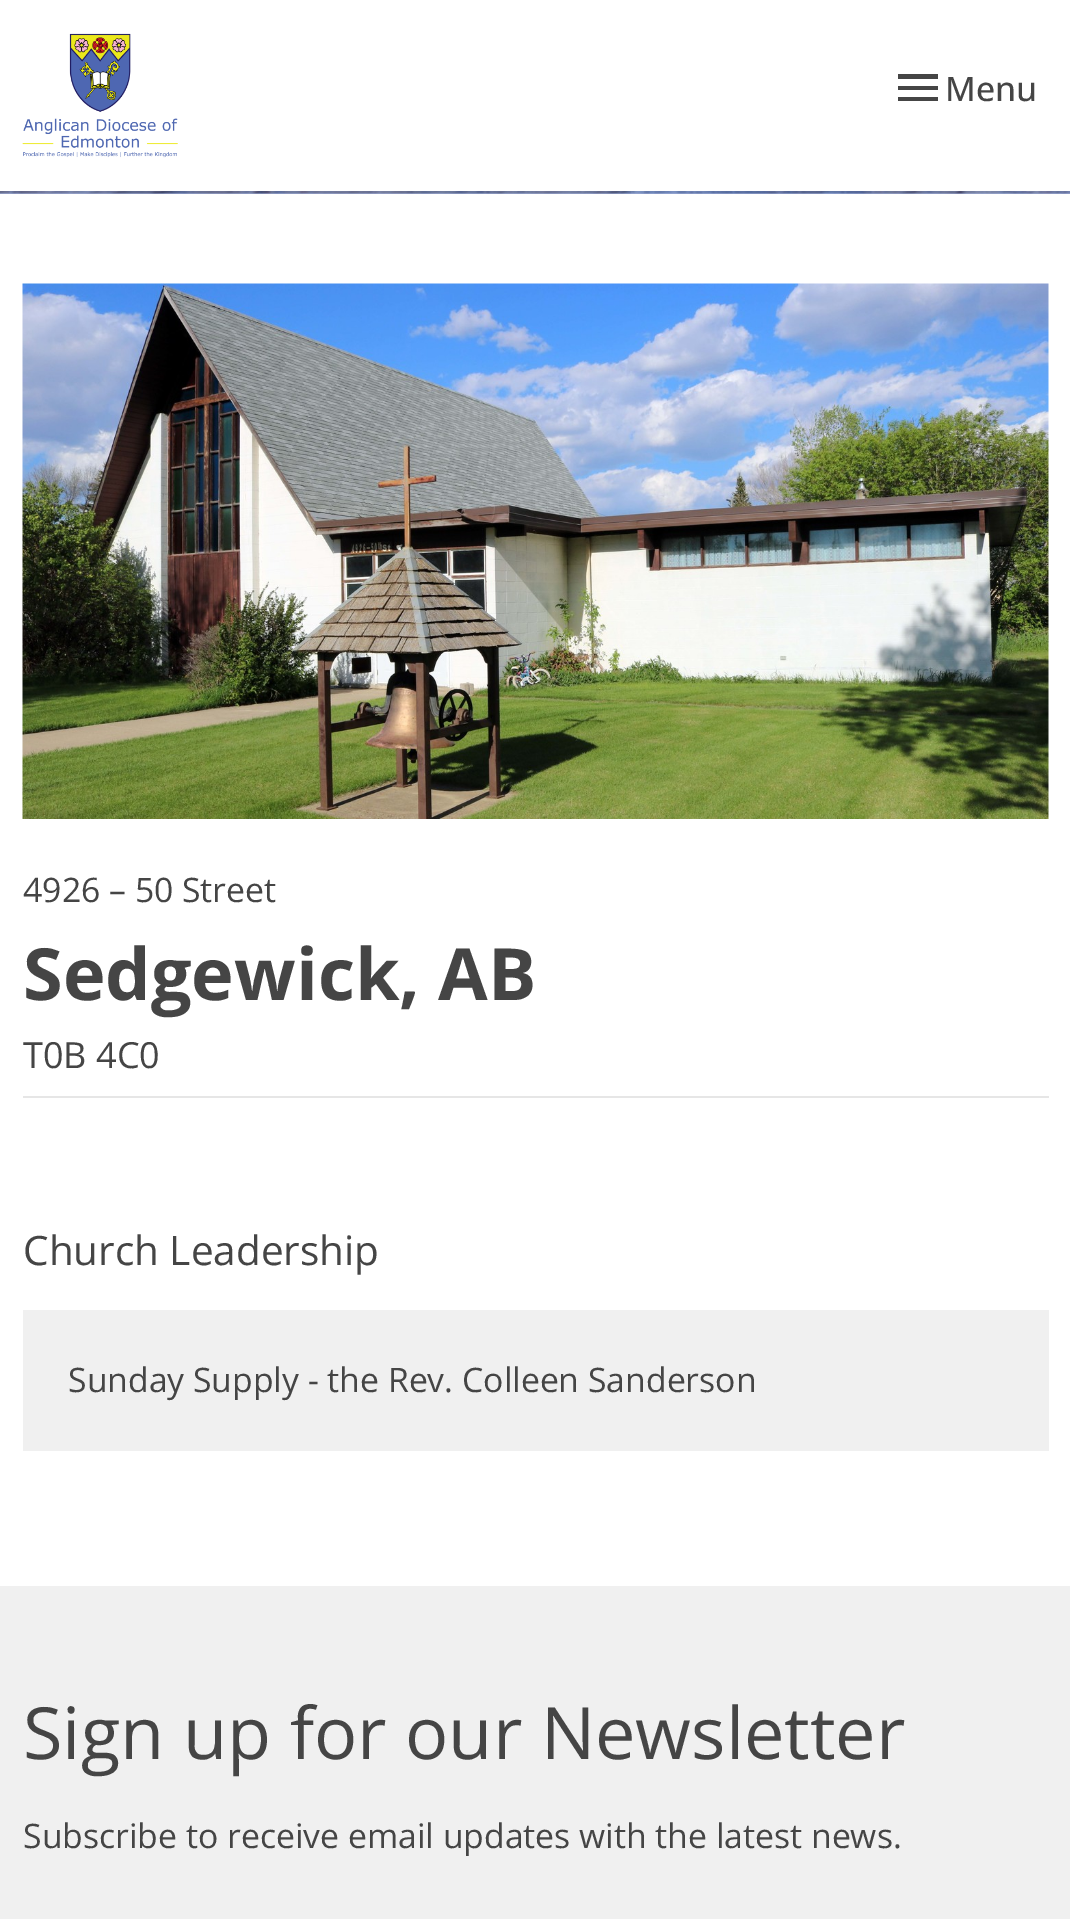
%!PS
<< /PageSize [1070 1919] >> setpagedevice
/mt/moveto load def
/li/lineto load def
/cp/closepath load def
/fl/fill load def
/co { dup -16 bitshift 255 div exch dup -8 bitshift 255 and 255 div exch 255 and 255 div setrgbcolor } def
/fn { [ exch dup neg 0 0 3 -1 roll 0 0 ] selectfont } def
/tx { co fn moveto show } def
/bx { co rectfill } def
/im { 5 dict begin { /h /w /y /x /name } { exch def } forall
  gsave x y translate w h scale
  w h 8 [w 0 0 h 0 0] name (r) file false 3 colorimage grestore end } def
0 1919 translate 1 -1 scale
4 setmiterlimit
0 0 1070 1919 16#FFFFFF bx
0 193 1070 1 16#A6B3DD bx
(media/1.raw) 22 33 156 125 im
16#454545 co
898 101 mt 938 101 li 938 97 li 898 97 li cp 898 90 mt 938 90 li 938 86 li 898 86 li cp 898 74 mt 898 79 li 938 79 li 938 74 li cp fl
(media/2.raw) 0 191 1070 3 im
(media/3.raw) 22 283 1027 536 im
23 1096 1026 2 16#E6E6E6 bx
23 1310 1026 141 16#F0F0F0 bx
0 1586 1070 333 16#F0F0F0 bx
(Menu) 945 101 /OpenSans-Medium 33.75 16#454545 tx
(4926 – 50 Street) 23 902 /OpenSans-Regular 33.75 16#454545 tx
(Sedgewick, AB) 23 1000 /OpenSans-Bold 72 16#454545 tx
(T0B 4C0) 23 1068 /OpenSans-Regular 36 16#454545 tx
(Church Leadership) 23 1265 /OpenSans-Regular 40.5 16#454545 tx
(Sunday Supply - the Rev. Colleen Sanderson) 68 1392 /OpenSans-Regular 33.75 16#454545 tx
(Sign up for our Newsletter) 23 1759 /OpenSans-Regular 72 16#454545 tx
(Subscribe to receive email updates with the latest news.) 23 1848 /OpenSans-Regular 33.75 16#454545 tx
showpage
